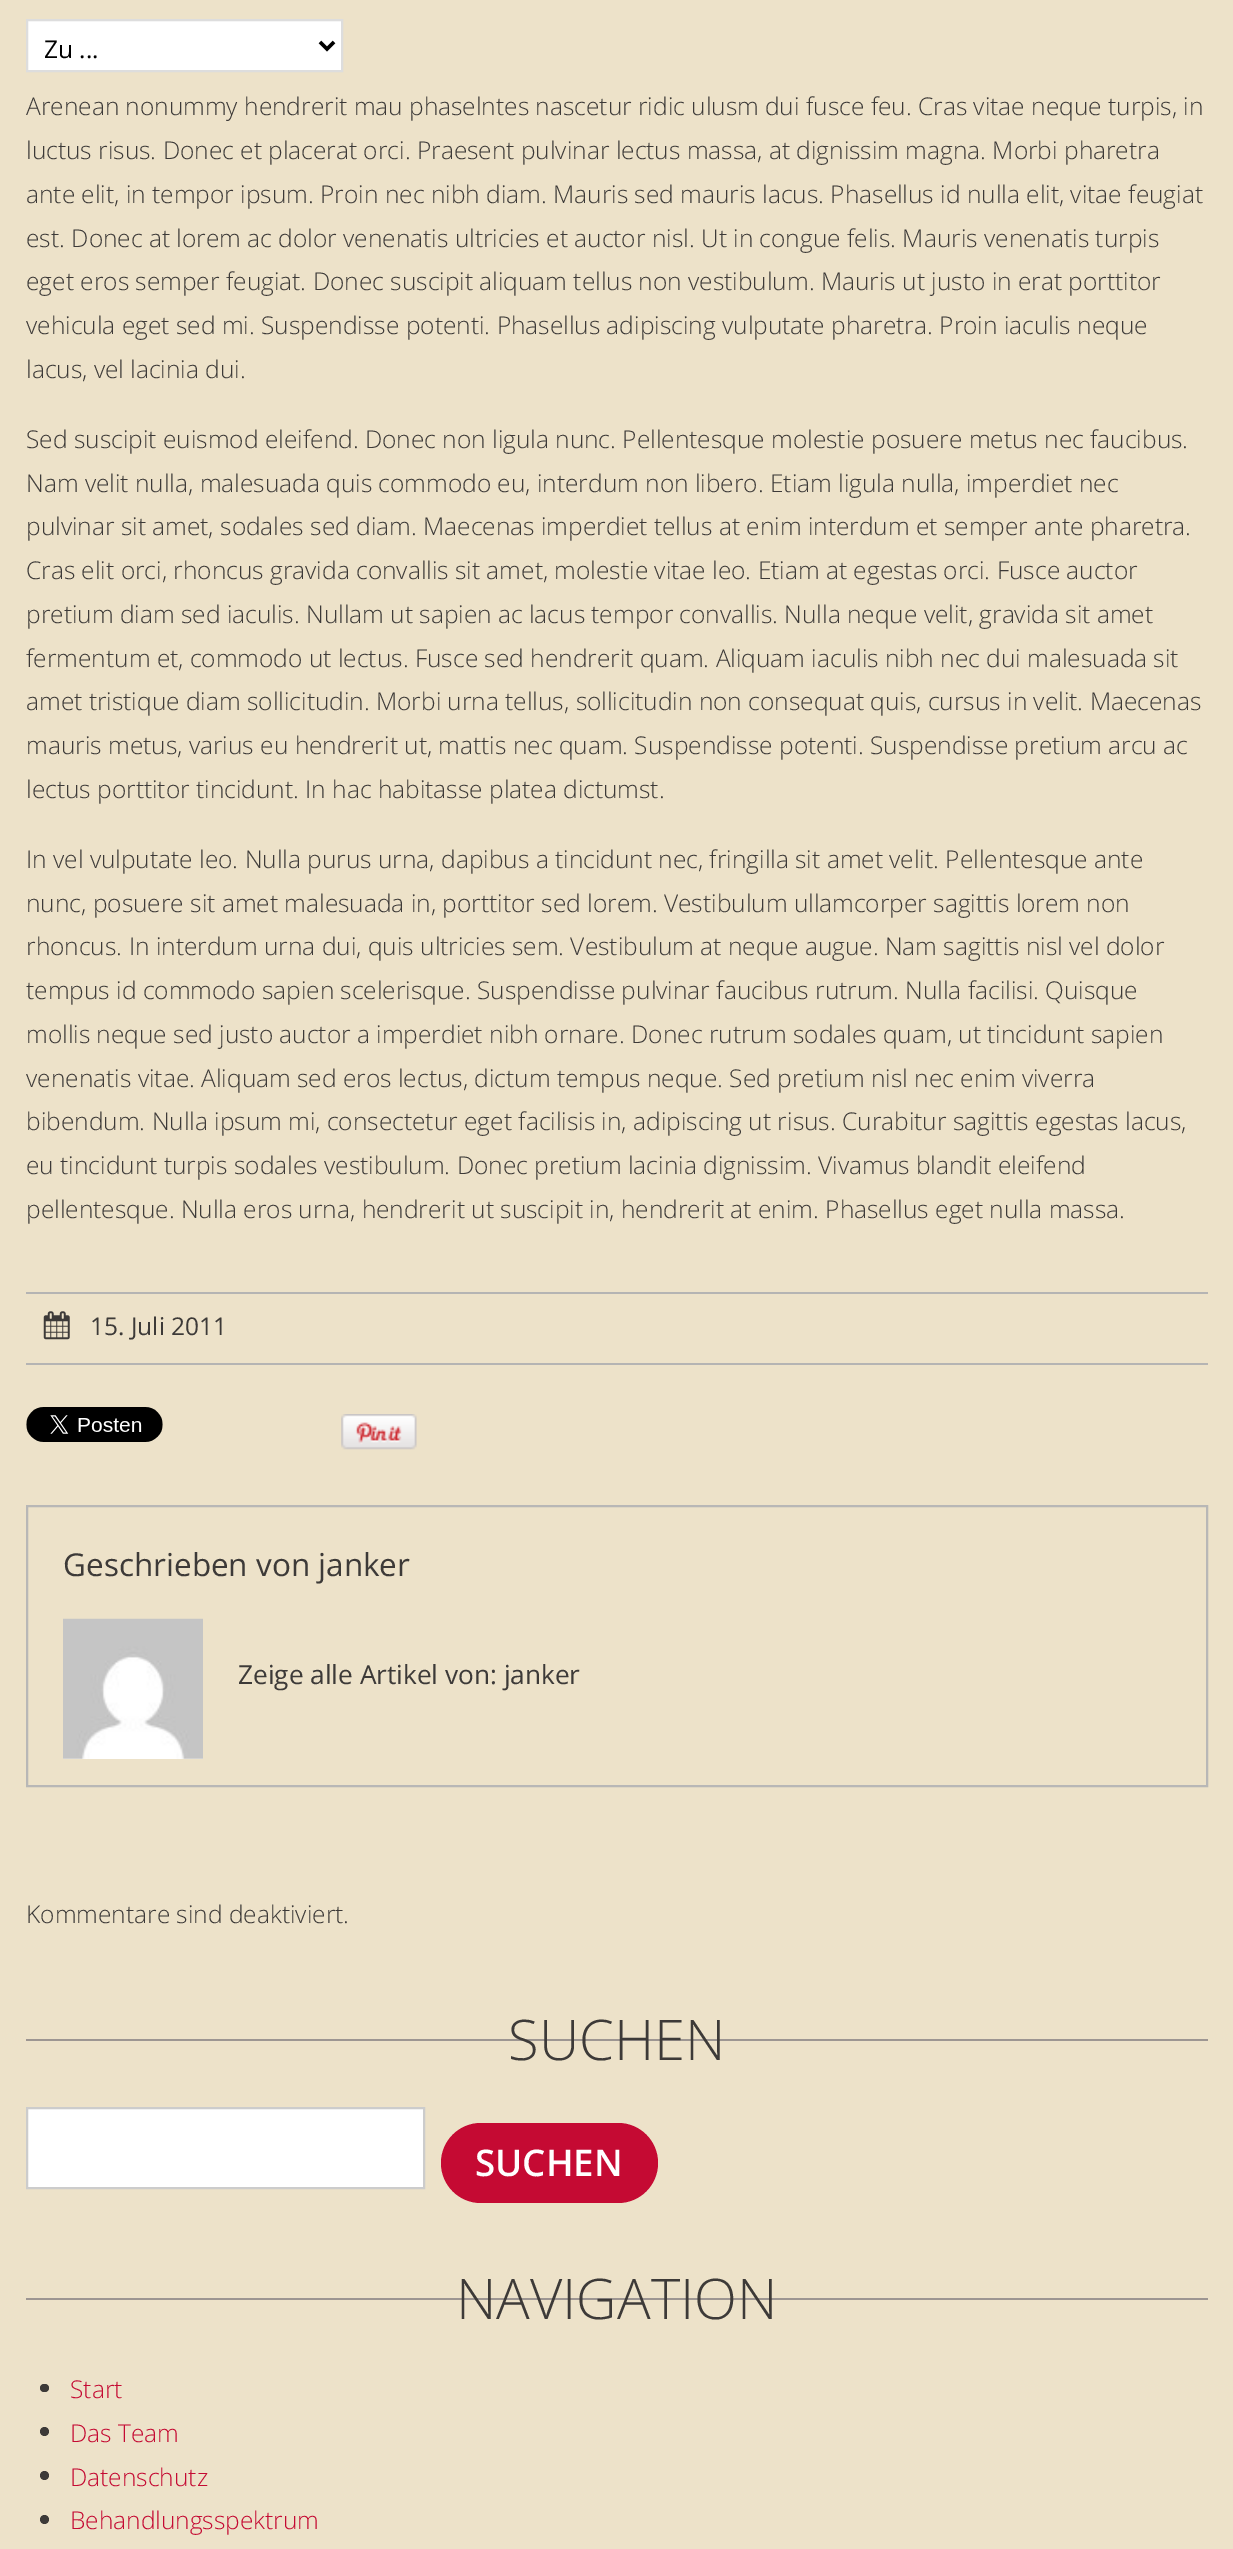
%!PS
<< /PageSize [1233 2549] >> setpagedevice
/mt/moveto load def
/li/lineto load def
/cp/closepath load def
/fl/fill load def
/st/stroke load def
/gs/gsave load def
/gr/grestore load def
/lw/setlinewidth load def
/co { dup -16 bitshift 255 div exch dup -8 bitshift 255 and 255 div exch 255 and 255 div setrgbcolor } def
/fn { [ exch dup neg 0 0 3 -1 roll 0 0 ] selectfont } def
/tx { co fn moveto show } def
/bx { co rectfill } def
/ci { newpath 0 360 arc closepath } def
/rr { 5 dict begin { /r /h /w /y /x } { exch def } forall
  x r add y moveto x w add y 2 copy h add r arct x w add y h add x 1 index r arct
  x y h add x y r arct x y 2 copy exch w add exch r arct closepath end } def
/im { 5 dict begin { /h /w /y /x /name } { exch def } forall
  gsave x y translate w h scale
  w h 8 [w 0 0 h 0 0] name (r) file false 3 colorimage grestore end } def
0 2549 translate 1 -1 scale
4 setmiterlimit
0 0 1233 2549 16#EDE2C9 bx
16#FFFFFF co
27 20 mt 342 20 li 342 71 li 27 71 li cp gs fl gr
16#DDDDDD co
2 lw
st
16#000000 co
3.5 lw
320 42 mt 327 49 li 334 42 li st
26 1292 1182 2 16#B5B4B3 bx
26 1363 1182 2 16#B5B4B3 bx
(media/1.raw) 43 1311 27 29 im
(media/2.raw) 26 1407 137 35 im
(media/3.raw) 341 1414 76 36 im
16#B8B7B6 co
2 lw
27 1506 1180 280 rectstroke
(media/4.raw) 63 1618 140 141 im
26 2039 1182 2 16#9D9692 bx
16#FFFFFF co
27 2108 mt 424 2108 li 424 2188 li 27 2188 li cp gs fl gr
16#CCCCCC co
st
16#C50A33 co
441 2123 217 80 40 rr fl
26 2298 1182 2 16#9D9692 bx
16#3D3A38 co
40 2384 9 8 4 rr fl
44.5 2431.5 4.5 ci fl
44.5 2475.5 4.5 ci fl
44.5 2519.5 4.5 ci fl
(Zu ...) 44 58 /OpenSans-Regular 24.5 16#000000 tx
(Arenean nonummy hendrerit mau phaselntes nascetur ridic ulusm dui fusce feu. Cras vitae neque turpis, in) 26 115 /OpenSans-Light 24.5 16#3D3A38 tx
(luctus risus. Donec et placerat orci. Praesent pulvinar lectus massa, at dignissim magna. Morbi pharetra) 26 159 /OpenSans-Light 24.5 16#3D3A38 tx
(ante elit, in tempor ipsum. Proin nec nibh diam. Mauris sed mauris lacus. Phasellus id nulla elit, vitae feugiat) 26 203 /OpenSans-Light 24.5 16#3D3A38 tx
(est. Donec at lorem ac dolor venenatis ultricies et auctor nisl. Ut in congue felis. Mauris venenatis turpis) 26 247 /OpenSans-Light 24.5 16#3D3A38 tx
(eget eros semper feugiat. Donec suscipit aliquam tellus non vestibulum. Mauris ut justo in erat porttitor) 26 290 /OpenSans-Light 24.5 16#3D3A38 tx
(vehicula eget sed mi. Suspendisse potenti. Phasellus adipiscing vulputate pharetra. Proin iaculis neque) 26 334 /OpenSans-Light 24.5 16#3D3A38 tx
(lacus, vel lacinia dui.) 26 378 /OpenSans-Light 24.5 16#3D3A38 tx
(Sed suscipit euismod eleifend. Donec non ligula nunc. Pellentesque molestie posuere metus nec faucibus.) 26 448 /OpenSans-Light 24.5 16#3D3A38 tx
(Nam velit nulla, malesuada quis commodo eu, interdum non libero. Etiam ligula nulla, imperdiet nec) 26 492 /OpenSans-Light 24.5 16#3D3A38 tx
(pulvinar sit amet, sodales sed diam. Maecenas imperdiet tellus at enim interdum et semper ante pharetra.) 26 535 /OpenSans-Light 24.5 16#3D3A38 tx
(Cras elit orci, rhoncus gravida convallis sit amet, molestie vitae leo. Etiam at egestas orci. Fusce auctor) 26 579 /OpenSans-Light 24.5 16#3D3A38 tx
(pretium diam sed iaculis. Nullam ut sapien ac lacus tempor convallis. Nulla neque velit, gravida sit amet) 26 623 /OpenSans-Light 24.5 16#3D3A38 tx
(fermentum et, commodo ut lectus. Fusce sed hendrerit quam. Aliquam iaculis nibh nec dui malesuada sit) 26 667 /OpenSans-Light 24.5 16#3D3A38 tx
(amet tristique diam sollicitudin. Morbi urna tellus, sollicitudin non consequat quis, cursus in velit. Maecenas) 26 710 /OpenSans-Light 24.5 16#3D3A38 tx
(mauris metus, varius eu hendrerit ut, mattis nec quam. Suspendisse potenti. Suspendisse pretium arcu ac) 26 754 /OpenSans-Light 24.5 16#3D3A38 tx
(lectus porttitor tincidunt. In hac habitasse platea dictumst.) 26 798 /OpenSans-Light 24.5 16#3D3A38 tx
(In vel vulputate leo. Nulla purus urna, dapibus a tincidunt nec, fringilla sit amet velit. Pellentesque ante) 26 868 /OpenSans-Light 24.5 16#3D3A38 tx
(nunc, posuere sit amet malesuada in, porttitor sed lorem. Vestibulum ullamcorper sagittis lorem non) 26 912 /OpenSans-Light 24.5 16#3D3A38 tx
(rhoncus. In interdum urna dui, quis ultricies sem. Vestibulum at neque augue. Nam sagittis nisl vel dolor) 26 955 /OpenSans-Light 24.5 16#3D3A38 tx
(tempus id commodo sapien scelerisque. Suspendisse pulvinar faucibus rutrum. Nulla facilisi. Quisque) 26 999 /OpenSans-Light 24.5 16#3D3A38 tx
(mollis neque sed justo auctor a imperdiet nibh ornare. Donec rutrum sodales quam, ut tincidunt sapien) 26 1043 /OpenSans-Light 24.5 16#3D3A38 tx
(venenatis vitae. Aliquam sed eros lectus, dictum tempus neque. Sed pretium nisl nec enim viverra) 26 1087 /OpenSans-Light 24.5 16#3D3A38 tx
(bibendum. Nulla ipsum mi, consectetur eget facilisis in, adipiscing ut risus. Curabitur sagittis egestas lacus,) 26 1130 /OpenSans-Light 24.5 16#3D3A38 tx
(eu tincidunt turpis sodales vestibulum. Donec pretium lacinia dignissim. Vivamus blandit eleifend) 26 1174 /OpenSans-Light 24.5 16#3D3A38 tx
(pellentesque. Nulla eros urna, hendrerit ut suscipit in, hendrerit at enim. Phasellus eget nulla massa.) 26 1218 /OpenSans-Light 24.5 16#3D3A38 tx
(15. Juli 2011) 90 1335 /OpenSans-Regular 24.5 16#3D3A38 tx
(Geschrieben von janker) 63 1576 /OpenSans-Regular 31.5 16#3D3A38 tx
(Zeige alle Artikel von: janker) 238 1684 /OpenSans-Regular 26.25 16#3D3A38 tx
(Kommentare sind deaktiviert.) 26 1923 /OpenSans-Light 24.5 16#3D3A38 tx
(SUCHEN) 508 2060 /OpenSans-Light 56 16#3D3A38 tx
(SUCHEN) 475 2176 /OpenSans-SemiBold 36.75 16#FFFFFF tx
(NAVIGATION) 456 2319 /OpenSans-Light 56 16#3D3A38 tx
(Start) 70 2398 /OpenSans-Light 24.5 16#C50A33 tx
(Das Team) 70 2442 /OpenSans-Light 24.5 16#C50A33 tx
(Datenschutz) 70 2486 /OpenSans-Light 24.5 16#C50A33 tx
(Behandlungsspektrum) 70 2529 /OpenSans-Light 24.5 16#C50A33 tx
showpage
